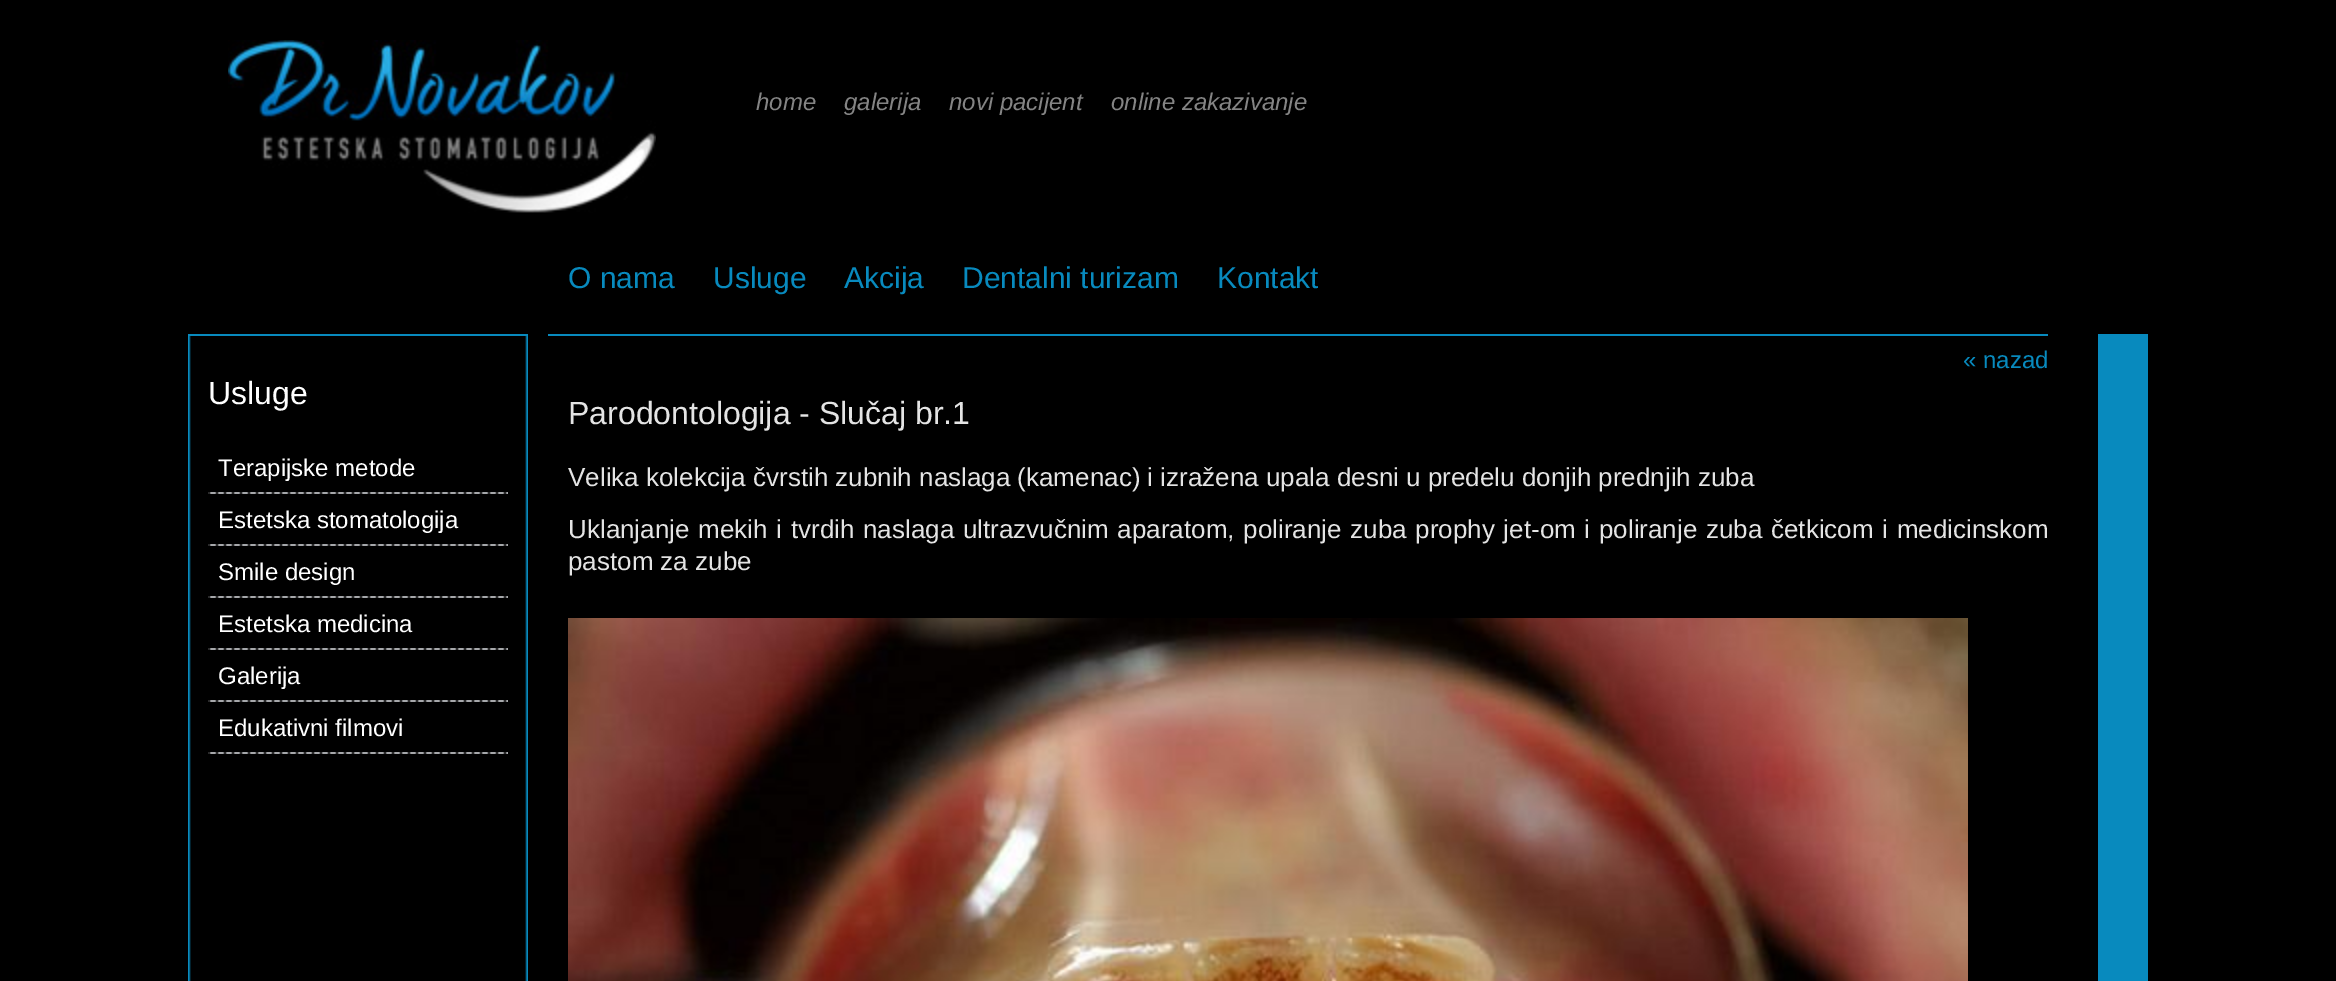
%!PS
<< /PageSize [2336 981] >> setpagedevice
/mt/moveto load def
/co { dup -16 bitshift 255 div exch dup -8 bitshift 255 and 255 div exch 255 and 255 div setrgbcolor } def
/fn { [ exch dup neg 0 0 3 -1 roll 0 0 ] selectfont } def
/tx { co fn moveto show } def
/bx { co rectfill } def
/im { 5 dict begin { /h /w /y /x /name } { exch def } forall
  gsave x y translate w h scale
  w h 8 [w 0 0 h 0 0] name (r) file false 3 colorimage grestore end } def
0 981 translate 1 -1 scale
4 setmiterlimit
0 0 2336 981 16#000000 bx
2098 334 50 647 16#088ABE bx
(media/1.raw) 228 40 428 173 im
(media/2.raw) 188 336 340 645 im
188 334 340 2 16#088ABE bx
(media/3.raw) 208 492 300 2 im
(media/3.raw) 208 544 300 2 im
(media/3.raw) 208 596 300 2 im
(media/3.raw) 208 648 300 2 im
(media/3.raw) 208 700 300 2 im
(media/3.raw) 208 752 300 2 im
548 334 1500 2 16#088ABE bx
(media/4.raw) 568 618 1400 363 im
(home) 756 110 /LiberationSans-Italic 24 16#848484 tx
(galerija) 844 110 /LiberationSans-Italic 24 16#848484 tx
(novi pacijent) 949 110 /LiberationSans-Italic 24 16#848484 tx
(online zakazivanje) 1111 110 /LiberationSans-Italic 24 16#848484 tx
(O nama) 568 288 /LiberationSans-Regular 30 16#088ABE tx
(Usluge) 713 288 /LiberationSans-Regular 30 16#088ABE tx
(Akcija) 844 288 /LiberationSans-Regular 30 16#088ABE tx
(Dentalni turizam) 962 288 /LiberationSans-Regular 30 16#088ABE tx
(Kontakt) 1217 288 /LiberationSans-Regular 30 16#088ABE tx
(Usluge) 208 404 /LiberationSans-Regular 32 16#FFFFFF tx
(Terapijske metode) 218 476 /LiberationSans-Regular 24 16#FFFFFF tx
(Estetska stomatologija) 218 528 /LiberationSans-Regular 24 16#FFFFFF tx
(Smile design) 218 580 /LiberationSans-Regular 24 16#FFFFFF tx
(Estetska medicina) 218 632 /LiberationSans-Regular 24 16#FFFFFF tx
(Galerija) 218 684 /LiberationSans-Regular 24 16#FFFFFF tx
(Edukativni filmovi) 218 736 /LiberationSans-Regular 24 16#FFFFFF tx
(« nazad) 1963 368 /LiberationSans-Regular 24 16#088ABE tx
(Parodontologija - Slučaj br.1) 568 424 /LiberationSans-Regular 32 16#E4E4E4 tx
(Velika kolekcija čvrstih zubnih naslaga \(kamenac\) i izražena upala desni u predelu donjih prednjih zuba) 568 486 /LiberationSans-Regular 26 16#E4E4E4 tx
568 538 mt 1.5 0 32 (Uklanjanje mekih i tvrdih naslaga ultrazvučnim aparatom, poliranje zuba prophy jet-om i poliranje zuba četkicom i medicinskom) widthshow
(pastom za zube) 568 570 /LiberationSans-Regular 26 16#E4E4E4 tx
showpage
